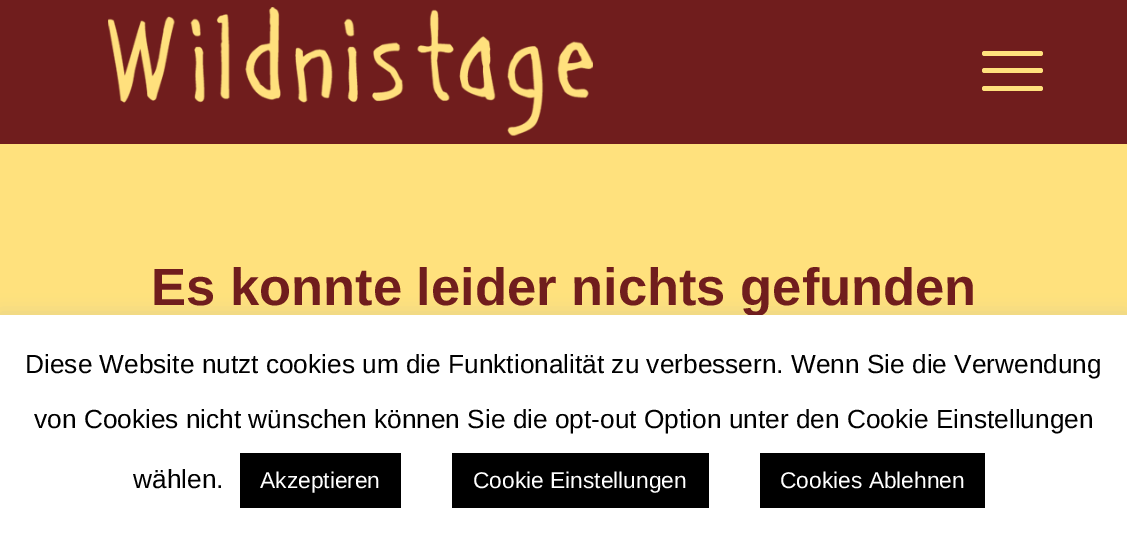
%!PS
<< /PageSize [1127 536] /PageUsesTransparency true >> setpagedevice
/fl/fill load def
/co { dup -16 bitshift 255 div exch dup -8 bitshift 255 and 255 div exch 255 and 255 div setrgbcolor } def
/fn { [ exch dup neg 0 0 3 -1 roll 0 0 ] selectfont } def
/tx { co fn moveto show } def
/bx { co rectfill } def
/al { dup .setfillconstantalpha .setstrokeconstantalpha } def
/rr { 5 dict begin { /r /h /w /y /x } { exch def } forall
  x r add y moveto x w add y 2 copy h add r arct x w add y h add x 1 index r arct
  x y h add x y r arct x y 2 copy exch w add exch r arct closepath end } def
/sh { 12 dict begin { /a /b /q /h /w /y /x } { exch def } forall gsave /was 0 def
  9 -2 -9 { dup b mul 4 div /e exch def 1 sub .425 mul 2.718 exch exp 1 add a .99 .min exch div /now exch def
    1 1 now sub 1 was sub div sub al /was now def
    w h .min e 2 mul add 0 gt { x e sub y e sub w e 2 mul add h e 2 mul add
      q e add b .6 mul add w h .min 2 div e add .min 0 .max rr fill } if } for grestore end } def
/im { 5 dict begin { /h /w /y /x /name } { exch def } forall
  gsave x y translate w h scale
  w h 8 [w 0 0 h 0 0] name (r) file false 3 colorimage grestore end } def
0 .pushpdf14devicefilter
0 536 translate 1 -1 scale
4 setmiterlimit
0 0 1127 536 16#701D1D bx
(media/1.raw) 108 7 485 129 im
16#FFE17D co
982 68 61 5 2.5 rr fl
982 51 61 5 2.5 rr fl
982 86 61 5 2.5 rr fl
0 144 1127 171 16#FFE17D bx
16#ACABAB co
0 313 1127 223 0 9 .3 sh
(Es konnte leider nichts gefunden) 151 305 /LiberationSans-Bold 52.5 16#701D1D tx
0 315 1127 221 16#FFFFFF bx
(Diese Website nutzt cookies um die Funktionalität zu verbessern. Wenn Sie die Verwendung) 25 373 /LiberationSans-Regular 26.25 16#000000 tx
(von Cookies nicht wünschen können Sie die opt-out Option unter den Cookie Einstellungen) 34 428 /LiberationSans-Regular 26.25 16#000000 tx
(wählen.) 133 488 /LiberationSans-Regular 26.25 16#000000 tx
240 453 161 55 16#000000 bx
(Akzeptieren) 260 488 /LiberationSans-Regular 22.75 16#FFFFFF tx
452 453 257 55 16#000000 bx
(Cookie Einstellungen) 473 488 /LiberationSans-Regular 22.75 16#FFFFFF tx
760 453 225 55 16#000000 bx
(Cookies Ablehnen) 780 488 /LiberationSans-Regular 22.75 16#FFFFFF tx
.poppdf14devicefilter showpage
